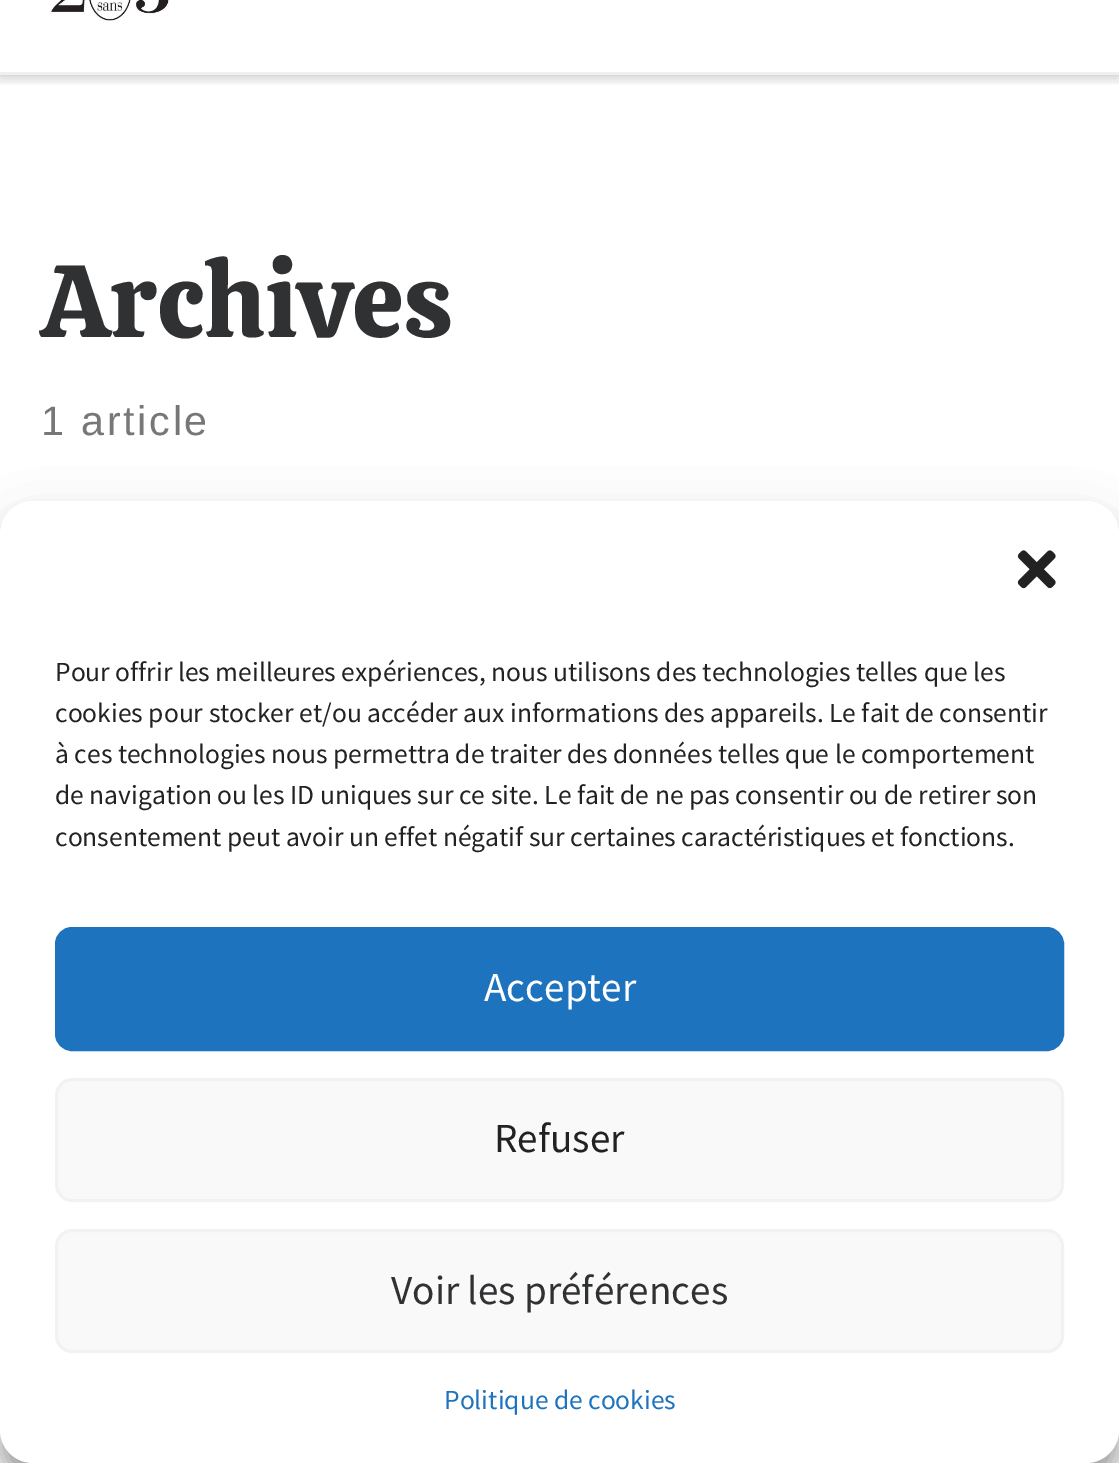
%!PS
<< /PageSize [1119 1463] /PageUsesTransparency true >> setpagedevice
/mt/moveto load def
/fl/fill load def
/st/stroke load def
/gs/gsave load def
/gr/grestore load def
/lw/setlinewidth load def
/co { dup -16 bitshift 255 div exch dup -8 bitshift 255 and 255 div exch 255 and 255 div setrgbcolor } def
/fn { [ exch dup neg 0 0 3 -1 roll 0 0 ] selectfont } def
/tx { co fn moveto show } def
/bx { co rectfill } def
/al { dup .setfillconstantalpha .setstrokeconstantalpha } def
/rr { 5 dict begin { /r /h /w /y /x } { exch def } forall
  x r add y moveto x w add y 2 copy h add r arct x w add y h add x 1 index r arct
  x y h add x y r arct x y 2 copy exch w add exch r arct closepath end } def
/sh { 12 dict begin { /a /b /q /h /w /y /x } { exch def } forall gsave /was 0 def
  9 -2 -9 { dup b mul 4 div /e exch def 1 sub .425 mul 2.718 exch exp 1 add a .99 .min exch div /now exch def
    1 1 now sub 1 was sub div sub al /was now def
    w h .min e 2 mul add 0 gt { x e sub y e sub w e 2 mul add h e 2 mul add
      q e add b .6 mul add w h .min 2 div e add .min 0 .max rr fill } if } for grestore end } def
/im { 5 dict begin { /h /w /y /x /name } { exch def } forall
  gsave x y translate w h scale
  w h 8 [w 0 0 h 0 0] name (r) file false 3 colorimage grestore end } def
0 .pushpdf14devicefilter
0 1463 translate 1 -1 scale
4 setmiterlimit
0 0 1119 1463 16#FFFFFF bx
gs
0 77 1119 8 rectclip
16#666666 co
0 -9 1119 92 0 3 .08 sh
gr
0 75 1119 2 16#EFEFEF bx
gs
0 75 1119 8 rectclip
16#000000 co
0 -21 1119 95 0 7 .2 sh
gr
(media/1.raw) 50 0 119 22 im
0 72 1119 3 16#F0F0F0 bx
16#000000 co
36 635 1048 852 0 8 .07 sh
0 517 1119 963 33 8 .23 sh
0 528 1119 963 33 27.5 .19 sh
16#FFFFFF co
0 501 1119 962 33 rr fl
(media/2.raw) 1017 550 39 39 im
16#1E73BE co
56.5 928.5 1006 121 15.5 rr gs fl gr
3 lw
st
16#F9F9F9 co
56.5 1079.5 1006 121 15.5 rr gs fl gr
16#F2F2F2 co
st
16#F9F9F9 co
56.5 1230.5 1006 121 15.5 rr gs fl gr
16#F2F2F2 co
st
(Archives) 41 337 /Calistoga-Regular 102.5 16#303133 tx
/LiberationSans-Regular 41.25 fn
16#777777 co
41 435 mt 2.75 0 (1 article) ashow
(Pour offrir les meilleures expériences, nous utilisons des technologies telles que les) 55 681 /SourceSansPro-Regular 27.5 16#222222 tx
(cookies pour stocker et/ou accéder aux informations des appareils. Le fait de consentir) 55 722 /SourceSansPro-Regular 27.5 16#222222 tx
(à ces technologies nous permettra de traiter des données telles que le comportement) 55 763 /SourceSansPro-Regular 27.5 16#222222 tx
(de navigation ou les ID uniques sur ce site. Le fait de ne pas consentir ou de retirer son) 55 804 /SourceSansPro-Regular 27.5 16#222222 tx
(consentement peut avoir un effet négatif sur certaines caractéristiques et fonctions.) 55 846 /SourceSansPro-Regular 27.5 16#222222 tx
(Accepter) 484 1001 /SourceSansPro-Regular 41.25 16#FFFFFF tx
(Refuser) 494 1152 /SourceSansPro-Regular 41.25 16#222222 tx
(Voir les préférences) 391 1304 /SourceSansPro-Regular 41.25 16#303133 tx
(Politique de cookies) 444 1409 /SourceSansPro-Regular 27.5 16#1E73BE tx
.poppdf14devicefilter showpage
